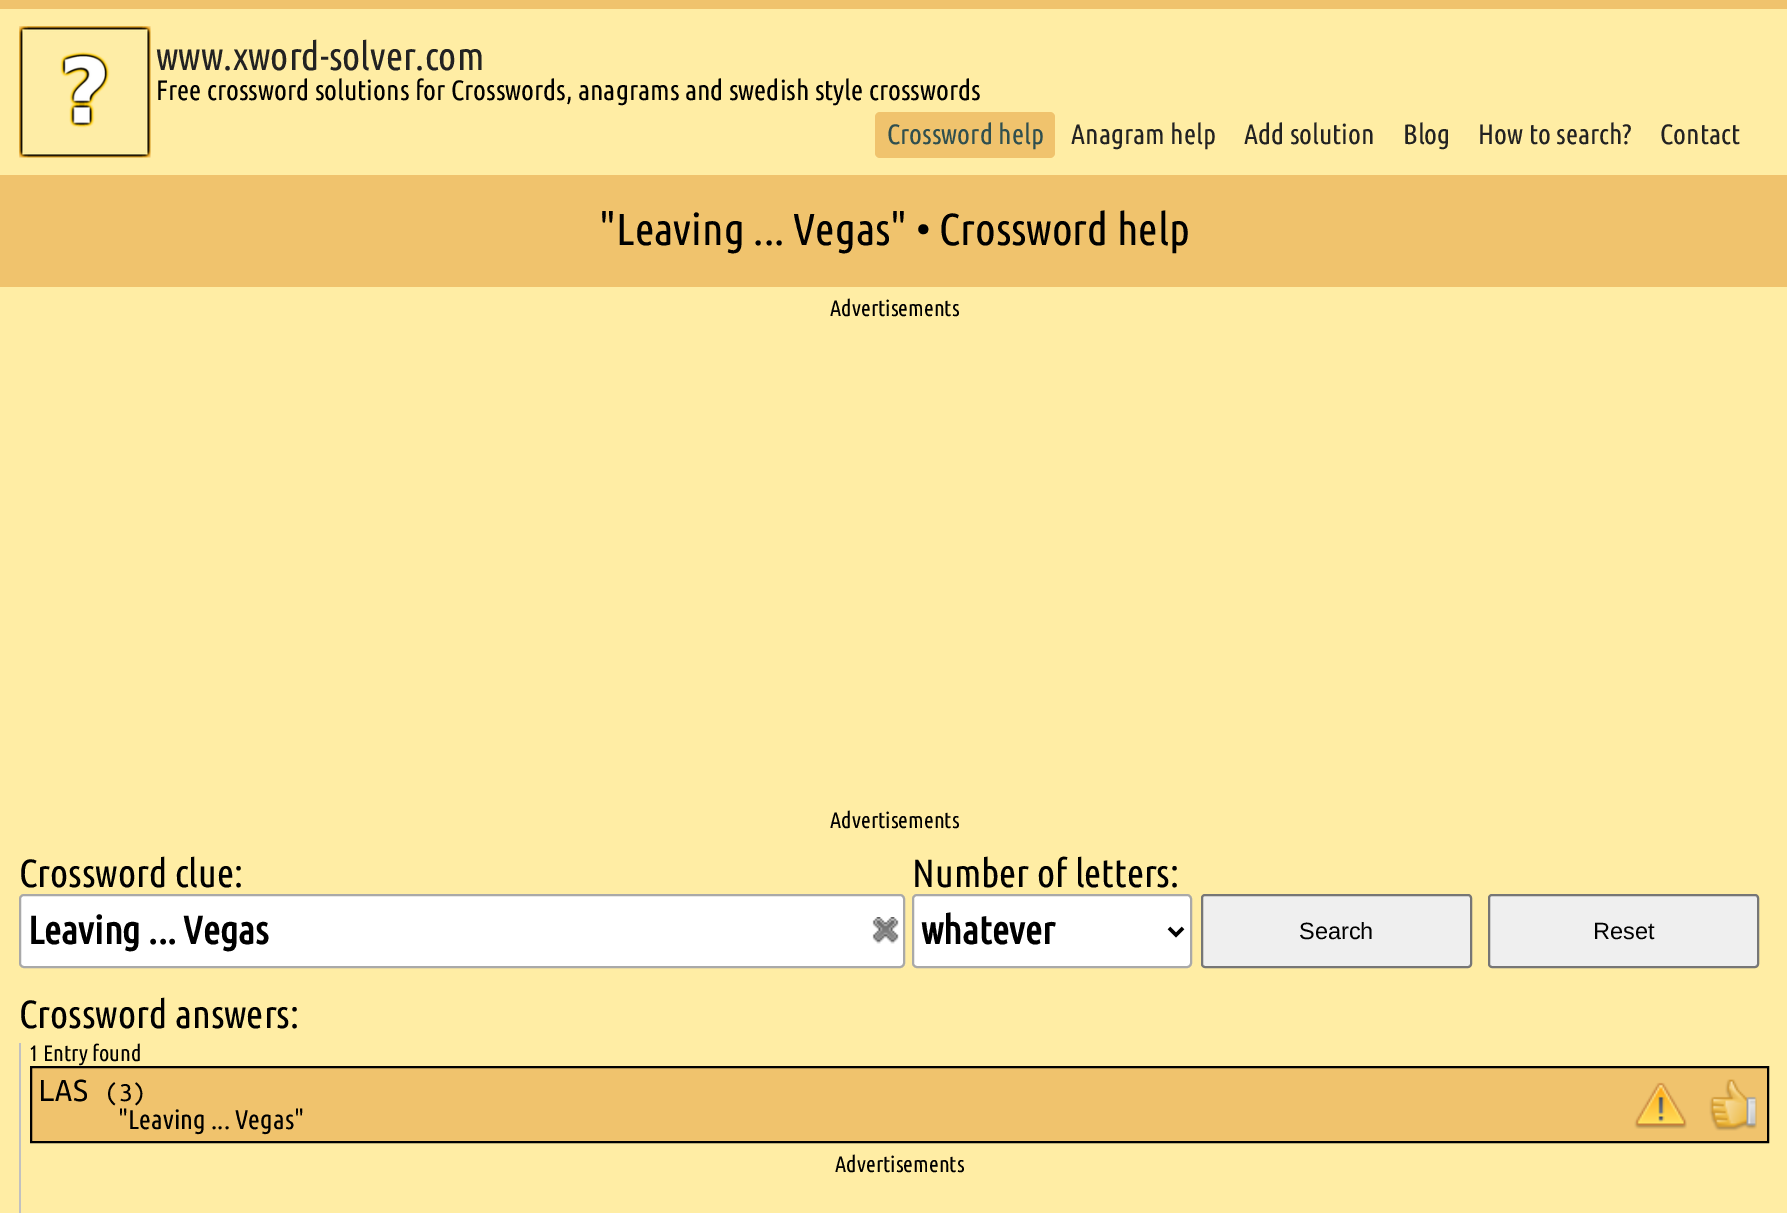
%!PS
<< /PageSize [1787 1213] >> setpagedevice
/mt/moveto load def
/li/lineto load def
/cp/closepath load def
/fl/fill load def
/st/stroke load def
/gs/gsave load def
/gr/grestore load def
/lw/setlinewidth load def
/co { dup -16 bitshift 255 div exch dup -8 bitshift 255 and 255 div exch 255 and 255 div setrgbcolor } def
/fn { [ exch dup neg 0 0 3 -1 roll 0 0 ] selectfont } def
/tx { co fn moveto show } def
/bx { co rectfill } def
/rr { 5 dict begin { /r /h /w /y /x } { exch def } forall
  x r add y moveto x w add y 2 copy h add r arct x w add y h add x 1 index r arct
  x y h add x y r arct x y 2 copy exch w add exch r arct closepath end } def
/im { 5 dict begin { /h /w /y /x /name } { exch def } forall
  gsave x y translate w h scale
  w h 8 [w 0 0 h 0 0] name (r) file false 3 colorimage grestore end } def
0 1213 translate 1 -1 scale
4 setmiterlimit
0 0 1787 1213 16#FFEDA4 bx
0 0 1787 9 16#F0C36D bx
(media/1.raw) 19 26 132 132 im
875 112 180 46 5 rr fl
0 175 1787 112 16#F0C36D bx
16#FFFFFF co
20 895 884 72 4 rr gs fl gr
16#A9A9A9 co
2 lw
st
(media/2.raw) 872 917 27 27 im
16#FFFFFF co
913 895 278 72 4 rr gs fl gr
16#A9A9A9 co
st
16#000000 co
3.5 lw
1169 928 mt 1176 935 li 1183 928 li st
16#EFEFEF co
1202 895 269 72 3 rr gs fl gr
16#767676 co
2 lw
st
16#EFEFEF co
1489 895 269 72 3 rr gs fl gr
16#767676 co
st
19 1043 2 170 16#C1C1C1 bx
16#F0C36D co
31 1067 mt 1768 1067 li 1768 1142 li 31 1142 li cp gs fl gr
16#000000 co
st
(media/3.raw) 1634 1082 53 47 im
(media/4.raw) 1709 1079 48 52 im
(www.xword-solver.com) 156 70 /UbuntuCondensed-Regular 39.25 16#222222 tx
(Free crossword solutions for Crosswords, anagrams and swedish style crosswords) 156 100 /UbuntuCondensed-Regular 28 16#000000 tx
(Crossword help) 887 144 /UbuntuCondensed-Regular 28 16#2F4F4F tx
(Anagram help) 1071 144 /UbuntuCondensed-Regular 28 16#222222 tx
(Add solution) 1244 144 /UbuntuCondensed-Regular 28 16#222222 tx
(Blog) 1403 144 /UbuntuCondensed-Regular 28 16#222222 tx
(How to search?) 1478 144 /UbuntuCondensed-Regular 28 16#222222 tx
(Contact) 1660 144 /UbuntuCondensed-Regular 28 16#222222 tx
("Leaving ... Vegas" • Crossword help) 599 245 /UbuntuCondensed-Regular 44.75 16#000000 tx
(Advertisements) 830 316 /UbuntuCondensed-Regular 22.5 16#000000 tx
(Advertisements) 830 828 /UbuntuCondensed-Regular 22.5 16#000000 tx
(Crossword clue:) 19 887 /UbuntuCondensed-Regular 39.25 16#000000 tx
(Leaving ... Vegas) 28 944 /UbuntuCondensed-Bold 39.25 16#000000 tx
(Number of letters:) 912 887 /UbuntuCondensed-Regular 39.25 16#000000 tx
(whatever) 921 944 /UbuntuCondensed-Bold 39.25 16#000000 tx
(Search) 1299 939 /LiberationSans-Regular 23.5 16#000000 tx
(Reset) 1593 939 /LiberationSans-Regular 23.5 16#000000 tx
(Crossword answers:) 19 1028 /UbuntuCondensed-Regular 39.25 16#000000 tx
(1 Entry found) 29 1061 /UbuntuCondensed-Regular 22.5 16#000000 tx
(LAS) 38 1101 /UbuntuMono-Regular 34 16#000000 tx
(\(3\)) 105 1101 /UbuntuMono-Regular 27 16#000000 tx
("Leaving ... Vegas") 118 1129 /UbuntuCondensed-Regular 27 16#000000 tx
(Advertisements) 835 1172 /UbuntuCondensed-Regular 22.5 16#000000 tx
showpage
